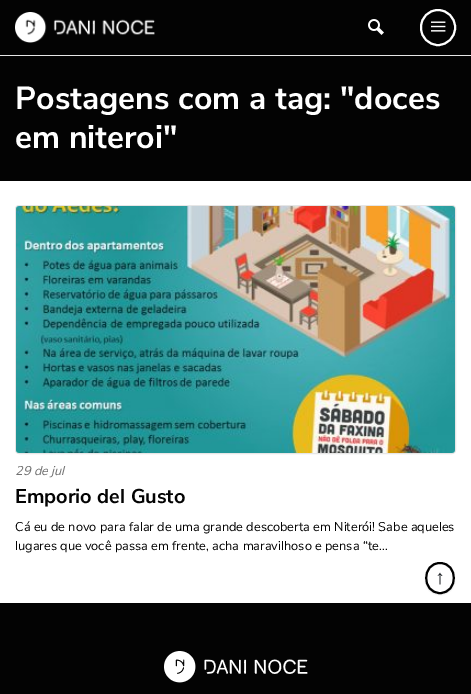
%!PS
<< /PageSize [471 694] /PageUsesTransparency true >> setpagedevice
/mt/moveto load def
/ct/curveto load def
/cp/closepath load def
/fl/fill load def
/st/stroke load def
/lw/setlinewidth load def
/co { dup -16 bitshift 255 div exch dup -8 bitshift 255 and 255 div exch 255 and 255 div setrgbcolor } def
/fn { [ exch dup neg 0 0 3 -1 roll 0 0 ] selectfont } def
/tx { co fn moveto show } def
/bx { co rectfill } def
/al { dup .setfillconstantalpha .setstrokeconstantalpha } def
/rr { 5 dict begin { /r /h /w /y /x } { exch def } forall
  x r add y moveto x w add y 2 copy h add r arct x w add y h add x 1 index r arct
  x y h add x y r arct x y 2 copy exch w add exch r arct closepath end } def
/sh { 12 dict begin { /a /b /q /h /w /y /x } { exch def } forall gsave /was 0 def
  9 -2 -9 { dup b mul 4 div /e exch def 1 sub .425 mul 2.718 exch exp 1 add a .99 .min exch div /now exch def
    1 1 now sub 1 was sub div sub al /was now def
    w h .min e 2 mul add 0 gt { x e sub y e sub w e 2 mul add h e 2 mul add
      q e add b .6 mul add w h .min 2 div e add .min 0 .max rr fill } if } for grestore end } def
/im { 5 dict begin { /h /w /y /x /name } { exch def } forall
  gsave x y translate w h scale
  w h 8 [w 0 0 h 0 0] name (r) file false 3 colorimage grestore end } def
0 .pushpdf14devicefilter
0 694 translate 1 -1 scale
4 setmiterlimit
0 0 471 694 16#FFFFFF bx
0 55 471 1 16#E6E6E6 bx
0 0 471 55 16#030303 bx
(media/1.raw) 15 12 140 31 im
(media/2.raw) 368 19 16 16 im
16#FFFFFF co
2 lw
421 10 34 35 17 rr st
(media/3.raw) 431 21 15 11 im
0 56 471 125 16#030303 bx
16#E6E6E6 co
1 lw
15.5 205.5 440 248 3.5 rr st
(media/4.raw) 16 206 439 247 im
0 603 471 91 16#030303 bx
16#000000 co
425 563 30 32 15 .5 .07 sh
16#FFFFFF co
440 562 mt 448.5 562 455 569 455 578 ct 455 587 448.5 594 440 594 ct 431.5 594 425 587 425 578 ct 425 569 431.5 562 440 562 ct cp fl
16#000000 co
2 lw
440 563 mt 458.5 563 458.5 593 440 593 ct 421.5 593 421.5 563 440 563 ct cp st
(media/5.raw) 164 651 144 32 im
(Postagens com a tag: "doces) 15 109 /NunitoSans-Bold 32 16#FFFFFF tx
(em niteroi") 15 148 /NunitoSans-Bold 32 16#FFFFFF tx
(29 de jul) 15 475 /NunitoSans-Italic 12.8 16#707070 tx
(Emporio del Gusto) 15 503 /NunitoSans-Bold 20 16#030303 tx
(Cá eu de novo para falar de uma grande descoberta em Niterói! Sabe aqueles) 15 531 /NunitoSans-Regular 12.8 16#030303 tx
(lugares que você passa em frente, acha maravilhoso e pensa “te...) 15 550 /NunitoSans-Regular 12.8 16#030303 tx
(↑) 435 584 /LiberationSans-Regular 20 16#212529 tx
.poppdf14devicefilter showpage
